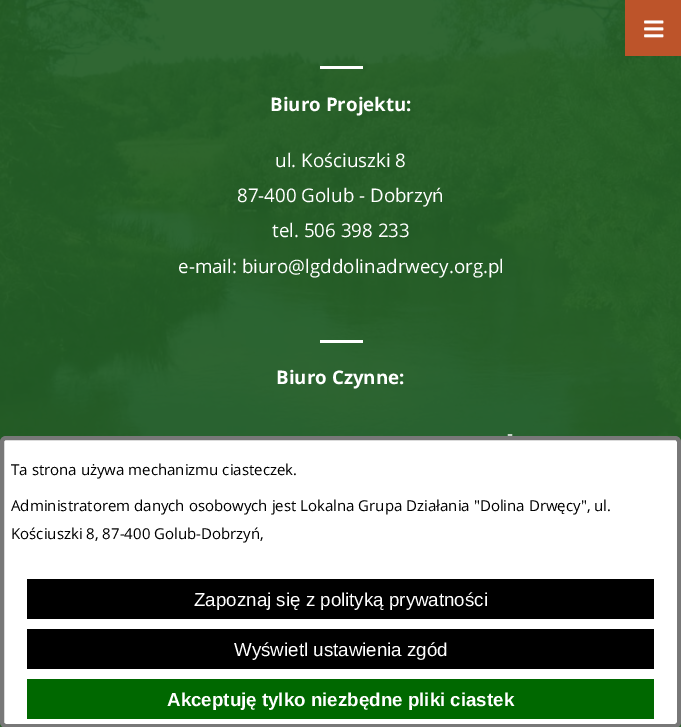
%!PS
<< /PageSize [681 727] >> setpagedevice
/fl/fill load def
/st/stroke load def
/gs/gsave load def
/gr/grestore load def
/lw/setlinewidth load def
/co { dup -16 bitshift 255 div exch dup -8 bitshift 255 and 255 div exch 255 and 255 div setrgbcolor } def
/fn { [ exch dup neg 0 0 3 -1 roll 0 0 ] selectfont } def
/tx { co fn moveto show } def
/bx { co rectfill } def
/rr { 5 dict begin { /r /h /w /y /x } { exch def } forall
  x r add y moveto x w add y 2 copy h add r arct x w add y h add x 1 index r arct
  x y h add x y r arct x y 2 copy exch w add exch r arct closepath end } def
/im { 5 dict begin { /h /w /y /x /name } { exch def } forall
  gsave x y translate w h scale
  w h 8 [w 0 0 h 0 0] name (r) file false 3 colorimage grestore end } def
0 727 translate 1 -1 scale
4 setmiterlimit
0 0 681 727 16#235E26 bx
(media/2.raw) 0 0 681 727 im
625 0 56 56 16#BD542A bx
(media/1.raw) 644 20 20 18 im
320 66 43 3 16#FFFFFF bx
320 340 43 3 16#FFFFFF bx
2 438 677 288 4 rr gs fl gr
16#787878 co
4 lw
st
27 579 627 40 16#000000 bx
27 629 627 40 16#000000 bx
27 679 627 40 16#006800 bx
(Biuro Projektu:) 270 111 /OpenSans-Bold 18.75 16#FFFFFF tx
(ul. Kościuszki 8) 275 167 /OpenSans-Regular 18.75 16#FFFFFF tx
(87-400 Golub - Dobrzyń) 237 202 /OpenSans-Regular 18.75 16#FFFFFF tx
(tel. 506 398 233) 272 237 /OpenSans-Regular 18.75 16#FFFFFF tx
(e-mail: biuro@lgddolinadrwecy.org.pl) 178 273 /OpenSans-Regular 18.75 16#FFFFFF tx
(Biuro Czynne:) 276 384 /OpenSans-Bold 18.75 16#FFFFFF tx
(-) 507 440 /OpenSans-Regular 18.75 16#FFFFFF tx
(Ta strona używa mechanizmu ciasteczek.) 11 475 /OpenSans-Regular 15 16#000000 tx
(Administratorem danych osobowych jest Lokalna Grupa Działania "Dolina Drwęcy", ul.) 11 511 /OpenSans-Regular 15 16#000000 tx
(Kościuszki 8, 87-400 Golub-Dobrzyń,) 11 539 /OpenSans-Regular 15 16#000000 tx
(Zapoznaj się z polityką prywatności) 194 606 /LiberationSans-Regular 18.75 16#FFFFFF tx
(Wyświetl ustawienia zgód) 234 656 /LiberationSans-Regular 18.75 16#FFFFFF tx
(Akceptuję tylko niezbędne pliki ciastek) 167 706 /LiberationSans-Bold 18.75 16#FFFFFF tx
showpage
